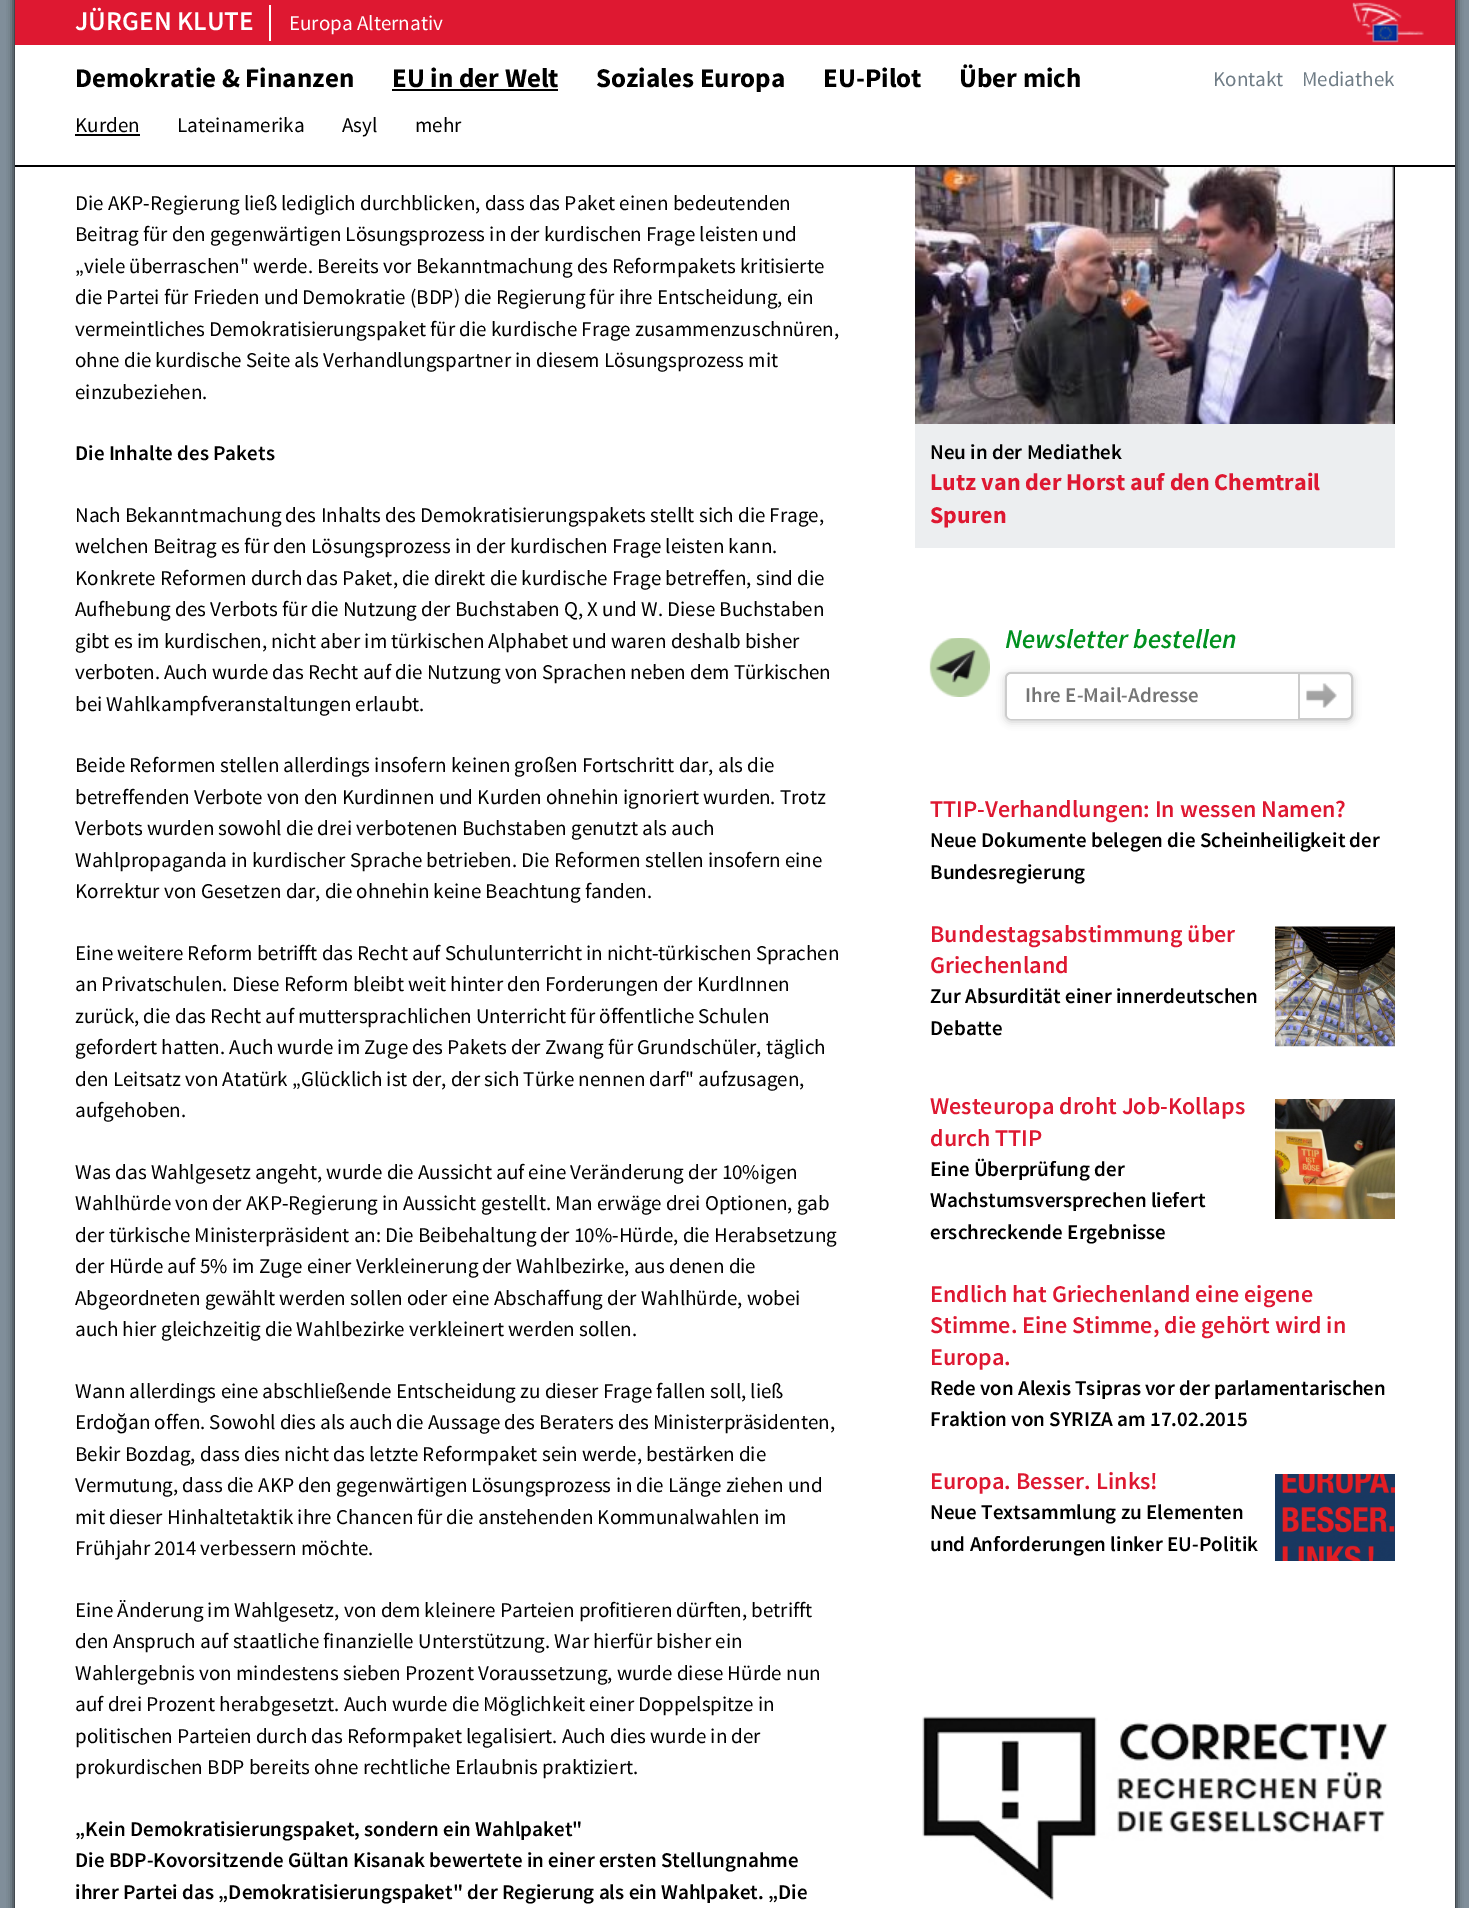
%!PS
<< /PageSize [1469 1908] /PageUsesTransparency true >> setpagedevice
/mt/moveto load def
/li/lineto load def
/ct/curveto load def
/cp/closepath load def
/fl/fill load def
/st/stroke load def
/gs/gsave load def
/gr/grestore load def
/lw/setlinewidth load def
/co { dup -16 bitshift 255 div exch dup -8 bitshift 255 and 255 div exch 255 and 255 div setrgbcolor } def
/fn { [ exch dup neg 0 0 3 -1 roll 0 0 ] selectfont } def
/tx { co fn moveto show } def
/bx { co rectfill } def
/al { dup .setfillconstantalpha .setstrokeconstantalpha } def
/rr { 5 dict begin { /r /h /w /y /x } { exch def } forall
  x r add y moveto x w add y 2 copy h add r arct x w add y h add x 1 index r arct
  x y h add x y r arct x y 2 copy exch w add exch r arct closepath end } def
/sh { 12 dict begin { /a /b /q /h /w /y /x } { exch def } forall gsave /was 0 def
  9 -2 -9 { dup b mul 4 div /e exch def 1 sub .425 mul 2.718 exch exp 1 add a .99 .min exch div /now exch def
    1 1 now sub 1 was sub div sub al /was now def
    w h .min e 2 mul add 0 gt { x e sub y e sub w e 2 mul add h e 2 mul add
      q e add b .6 mul add w h .min 2 div e add .min 0 .max rr fill } if } for grestore end } def
/im { 5 dict begin { /h /w /y /x /name } { exch def } forall
  gsave x y translate w h scale
  w h 8 [w 0 0 h 0 0] name (r) file false 3 colorimage grestore end } def
0 .pushpdf14devicefilter
0 1908 translate 1 -1 scale
4 setmiterlimit
0 0 1469 1908 16#808E9A bx
16#000000 co
15 -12 1440 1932 0 4 1 sh
15 167 1440 1741 16#FFFFFF bx
15 0 1440 45 16#DE1831 bx
(media/1.raw) 1352 2 72 41 im
269 5 2 36 16#FFFFFF bx
15 45 1440 120 16#FFFFFF bx
15 165 1440 2 16#000000 bx
392 89 166 2 16#000000 bx
75 134 65 2 16#000000 bx
915 424 480 124 16#ECEEF0 bx
(media/2.raw) 915 167 480 257 im
(media/3.raw) 929 638 61 59 im
gs
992 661 mt 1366 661 li 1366 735 li 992 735 li cp 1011 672 mt 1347 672 li 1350.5 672 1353 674.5 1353 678 ct 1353 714 li 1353 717.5 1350.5 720 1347 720 ct 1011 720 li 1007.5 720 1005 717.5 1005 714 ct 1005 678 li 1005 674.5 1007.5 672 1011 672 ct cp eoclip newpath
16#CCCCCC co
1005 674 348 48 6 4 1 sh
gr
16#CCCCCC co
2 lw
1006 673 346 46 5 rr st
1298 674 2 45 16#CCCCCC bx
16#FFFFFF co
1012 674 mt 1298 674 li 1298 719 li 1012 719 li 1009 719 1007 717 1007 714 ct 1007 679 li 1007 676 1009 674 1012 674 ct cp fl
(media/4.raw) 1306 683 31 25 im
(media/5.raw) 1275 926 120 121 im
(media/6.raw) 1275 1099 120 120 im
(media/7.raw) 1275 1474 120 87 im
(media/8.raw) 922 1716 466 185 im
(JÜRGEN KLUTE) 75 30 /SourceSansPro-SemiBold 27 16#FFFFFF tx
(Europa Alternativ) 289 30 /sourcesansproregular-Regular 21 16#FFFFFF tx
(EU in der Welt) 392 87 /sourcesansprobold-Bold 27 16#000000 tx
(Kurden) 75 132 /sourcesansproregular-Regular 21 16#000000 tx
(Lateinamerika) 177 132 /sourcesansproregular-Regular 21 16#000000 tx
(Asyl) 342 132 /sourcesansproregular-Regular 21 16#000000 tx
(mehr) 415 132 /sourcesansproregular-Regular 21 16#000000 tx
(Über mich) 959 87 /sourcesansprobold-Bold 27 16#000000 tx
(Demokratie & Finanzen) 75 87 /sourcesansprobold-Bold 27 16#000000 tx
(Soziales Europa) 596 87 /sourcesansprobold-Bold 27 16#000000 tx
(EU-Pilot) 823 87 /sourcesansprobold-Bold 27 16#000000 tx
(Kontakt) 1213 86 /sourcesansproregular-Regular 21 16#6F7C86 tx
(Mediathek) 1302 86 /sourcesansproregular-Regular 21 16#6F7C86 tx
(Die AKP-Regierung ließ lediglich durchblicken, dass das Paket einen bedeutenden) 75 210 /sourcesansproregular-Regular 21 16#000000 tx
(Beitrag für den gegenwärtigen Lösungsprozess in der kurdischen Frage leisten und) 75 241 /sourcesansproregular-Regular 21 16#000000 tx
(„viele überraschen" werde. Bereits vor Bekanntmachung des Reformpakets kritisierte) 75 273 /sourcesansproregular-Regular 21 16#000000 tx
(die Partei für Frieden und Demokratie \(BDP\) die Regierung für ihre Entscheidung, ein) 75 304 /sourcesansproregular-Regular 21 16#000000 tx
(vermeintliches Demokratisierungspaket für die kurdische Frage zusammenzuschnüren,) 75 336 /sourcesansproregular-Regular 21 16#000000 tx
(ohne die kurdische Seite als Verhandlungspartner in diesem Lösungsprozess mit) 75 367 /sourcesansproregular-Regular 21 16#000000 tx
(einzubeziehen.) 75 399 /sourcesansproregular-Regular 21 16#000000 tx
(Die Inhalte des Pakets) 75 460 /SourceSansPro-SemiBold 21 16#000000 tx
(Nach Bekanntmachung des Inhalts des Demokratisierungspakets stellt sich die Frage,) 75 522 /sourcesansproregular-Regular 21 16#000000 tx
(welchen Beitrag es für den Lösungsprozess in der kurdischen Frage leisten kann.) 75 553 /sourcesansproregular-Regular 21 16#000000 tx
(Konkrete Reformen durch das Paket, die direkt die kurdische Frage betreffen, sind die) 75 585 /sourcesansproregular-Regular 21 16#000000 tx
(Aufhebung des Verbots für die Nutzung der Buchstaben Q, X und W. Diese Buchstaben) 75 616 /sourcesansproregular-Regular 21 16#000000 tx
(gibt es im kurdischen, nicht aber im türkischen Alphabet und waren deshalb bisher) 75 648 /sourcesansproregular-Regular 21 16#000000 tx
(verboten. Auch wurde das Recht auf die Nutzung von Sprachen neben dem Türkischen) 75 679 /sourcesansproregular-Regular 21 16#000000 tx
(bei Wahlkampfveranstaltungen erlaubt.) 75 711 /sourcesansproregular-Regular 21 16#000000 tx
(Beide Reformen stellen allerdings insofern keinen großen Fortschritt dar, als die) 75 772 /sourcesansproregular-Regular 21 16#000000 tx
(betreffenden Verbote von den Kurdinnen und Kurden ohnehin ignoriert wurden. Trotz) 75 804 /sourcesansproregular-Regular 21 16#000000 tx
(Verbots wurden sowohl die drei verbotenen Buchstaben genutzt als auch) 75 835 /sourcesansproregular-Regular 21 16#000000 tx
(Wahlpropaganda in kurdischer Sprache betrieben. Die Reformen stellen insofern eine) 75 867 /sourcesansproregular-Regular 21 16#000000 tx
(Korrektur von Gesetzen dar, die ohnehin keine Beachtung fanden.) 75 898 /sourcesansproregular-Regular 21 16#000000 tx
(Eine weitere Reform betrifft das Recht auf Schulunterricht in nicht-türkischen Sprachen) 75 960 /sourcesansproregular-Regular 21 16#000000 tx
(an Privatschulen. Diese Reform bleibt weit hinter den Forderungen der KurdInnen) 75 991 /sourcesansproregular-Regular 21 16#000000 tx
(zurück, die das Recht auf muttersprachlichen Unterricht für öffentliche Schulen) 75 1023 /sourcesansproregular-Regular 21 16#000000 tx
(gefordert hatten. Auch wurde im Zuge des Pakets der Zwang für Grundschüler, täglich) 75 1054 /sourcesansproregular-Regular 21 16#000000 tx
(den Leitsatz von Atatürk „Glücklich ist der, der sich Türke nennen darf" aufzusagen,) 75 1086 /sourcesansproregular-Regular 21 16#000000 tx
(aufgehoben.) 75 1117 /sourcesansproregular-Regular 21 16#000000 tx
(Was das Wahlgesetz angeht, wurde die Aussicht auf eine Veränderung der 10%igen) 75 1179 /sourcesansproregular-Regular 21 16#000000 tx
(Wahlhürde von der AKP-Regierung in Aussicht gestellt. Man erwäge drei Optionen, gab) 75 1210 /sourcesansproregular-Regular 21 16#000000 tx
(der türkische Ministerpräsident an: Die Beibehaltung der 10%-Hürde, die Herabsetzung) 75 1242 /sourcesansproregular-Regular 21 16#000000 tx
(der Hürde auf 5% im Zuge einer Verkleinerung der Wahlbezirke, aus denen die) 75 1273 /sourcesansproregular-Regular 21 16#000000 tx
(Abgeordneten gewählt werden sollen oder eine Abschaffung der Wahlhürde, wobei) 75 1305 /sourcesansproregular-Regular 21 16#000000 tx
(auch hier gleichzeitig die Wahlbezirke verkleinert werden sollen.) 75 1336 /sourcesansproregular-Regular 21 16#000000 tx
(Wann allerdings eine abschließende Entscheidung zu dieser Frage fallen soll, ließ) 75 1398 /sourcesansproregular-Regular 21 16#000000 tx
(Erdo) 75 1429 /sourcesansproregular-Regular 21 16#000000 tx
(ğ) 116 1429 /LiberationSans-Regular 21 16#000000 tx
(an offen. Sowohl dies als auch die Aussage des Beraters des Ministerpräsidenten,) 128 1429 /sourcesansproregular-Regular 21 16#000000 tx
(Bekir Bozdag, dass dies nicht das letzte Reformpaket sein werde, bestärken die) 75 1461 /sourcesansproregular-Regular 21 16#000000 tx
(Vermutung, dass die AKP den gegenwärtigen Lösungsprozess in die Länge ziehen und) 75 1492 /sourcesansproregular-Regular 21 16#000000 tx
(mit dieser Hinhaltetaktik ihre Chancen für die anstehenden Kommunalwahlen im) 75 1524 /sourcesansproregular-Regular 21 16#000000 tx
(Frühjahr 2014 verbessern möchte.) 75 1555 /sourcesansproregular-Regular 21 16#000000 tx
(Eine Änderung im Wahlgesetz, von dem kleinere Parteien profitieren dürften, betrifft) 75 1617 /sourcesansproregular-Regular 21 16#000000 tx
(den Anspruch auf staatliche finanzielle Unterstützung. War hierfür bisher ein) 75 1648 /sourcesansproregular-Regular 21 16#000000 tx
(Wahlergebnis von mindestens sieben Prozent Voraussetzung, wurde diese Hürde nun) 75 1680 /sourcesansproregular-Regular 21 16#000000 tx
(auf drei Prozent herabgesetzt. Auch wurde die Möglichkeit einer Doppelspitze in) 75 1711 /sourcesansproregular-Regular 21 16#000000 tx
(politischen Parteien durch das Reformpaket legalisiert. Auch dies wurde in der) 75 1743 /sourcesansproregular-Regular 21 16#000000 tx
(prokurdischen BDP bereits ohne rechtliche Erlaubnis praktiziert.) 75 1774 /sourcesansproregular-Regular 21 16#000000 tx
(„Kein Demokratisierungspaket, sondern ein Wahlpaket") 75 1836 /SourceSansPro-SemiBold 21 16#000000 tx
(Die BDP-Kovorsitzende Gültan Kisanak bewertete in einer ersten Stellungnahme) 75 1867 /SourceSansPro-SemiBold 21 16#000000 tx
(ihrer Partei das „Demokratisierungspaket" der Regierung als ein Wahlpaket. „Die) 75 1899 /SourceSansPro-SemiBold 21 16#000000 tx
(Neu in der Mediathek) 930 459 /SourceSansPro-SemiBold 21 16#000000 tx
(Lutz van der Horst auf den Chemtrail) 930 490 /sourcesansprobold-Bold 24 16#DE1831 tx
(Spuren) 930 523 /sourcesansprobold-Bold 24 16#DE1831 tx
(Newsletter bestellen) 1005 648 /SourceSansPro-SemiBoldItalic 27 16#00911F tx
(Ihre E-Mail-Adresse) 1025 702 /SourceSansPro-SemiBold 21 16#757575 tx
(TTIP-Verhandlungen: In wessen Namen?) 930 817 /SourceSansPro-SemiBold 24 16#DE1831 tx
(Neue Dokumente belegen die Scheinheiligkeit der) 930 847 /SourceSansPro-SemiBold 21 16#000000 tx
(Bundesregierung) 930 879 /SourceSansPro-SemiBold 21 16#000000 tx
(Bundestagsabstimmung über) 930 942 /SourceSansPro-SemiBold 24 16#DE1831 tx
(Griechenland) 930 973 /SourceSansPro-SemiBold 24 16#DE1831 tx
(Zur Absurdität einer innerdeutschen) 930 1003 /SourceSansPro-SemiBold 21 16#000000 tx
(Debatte) 930 1035 /SourceSansPro-SemiBold 21 16#000000 tx
(Westeuropa droht Job-Kollaps) 930 1114 /SourceSansPro-SemiBold 24 16#DE1831 tx
(durch TTIP) 930 1146 /SourceSansPro-SemiBold 24 16#DE1831 tx
(Eine Überprüfung der) 930 1176 /SourceSansPro-SemiBold 21 16#000000 tx
(Wachstumsversprechen liefert) 930 1207 /SourceSansPro-SemiBold 21 16#000000 tx
(erschreckende Ergebnisse) 930 1239 /SourceSansPro-SemiBold 21 16#000000 tx
(Endlich hat Griechenland eine eigene) 930 1302 /SourceSansPro-SemiBold 24 16#DE1831 tx
(Stimme. Eine Stimme, die gehört wird in) 930 1333 /SourceSansPro-SemiBold 24 16#DE1831 tx
(Europa.) 930 1365 /SourceSansPro-SemiBold 24 16#DE1831 tx
(Rede von Alexis Tsipras vor der parlamentarischen) 930 1395 /SourceSansPro-SemiBold 21 16#000000 tx
(Fraktion von SYRIZA am 17.02.2015) 930 1426 /SourceSansPro-SemiBold 21 16#000000 tx
(Europa. Besser. Links!) 930 1489 /SourceSansPro-SemiBold 24 16#DE1831 tx
(Neue Textsammlung zu Elementen) 930 1519 /SourceSansPro-SemiBold 21 16#000000 tx
(und Anforderungen linker EU-Politik) 930 1551 /SourceSansPro-SemiBold 21 16#000000 tx
.poppdf14devicefilter showpage
